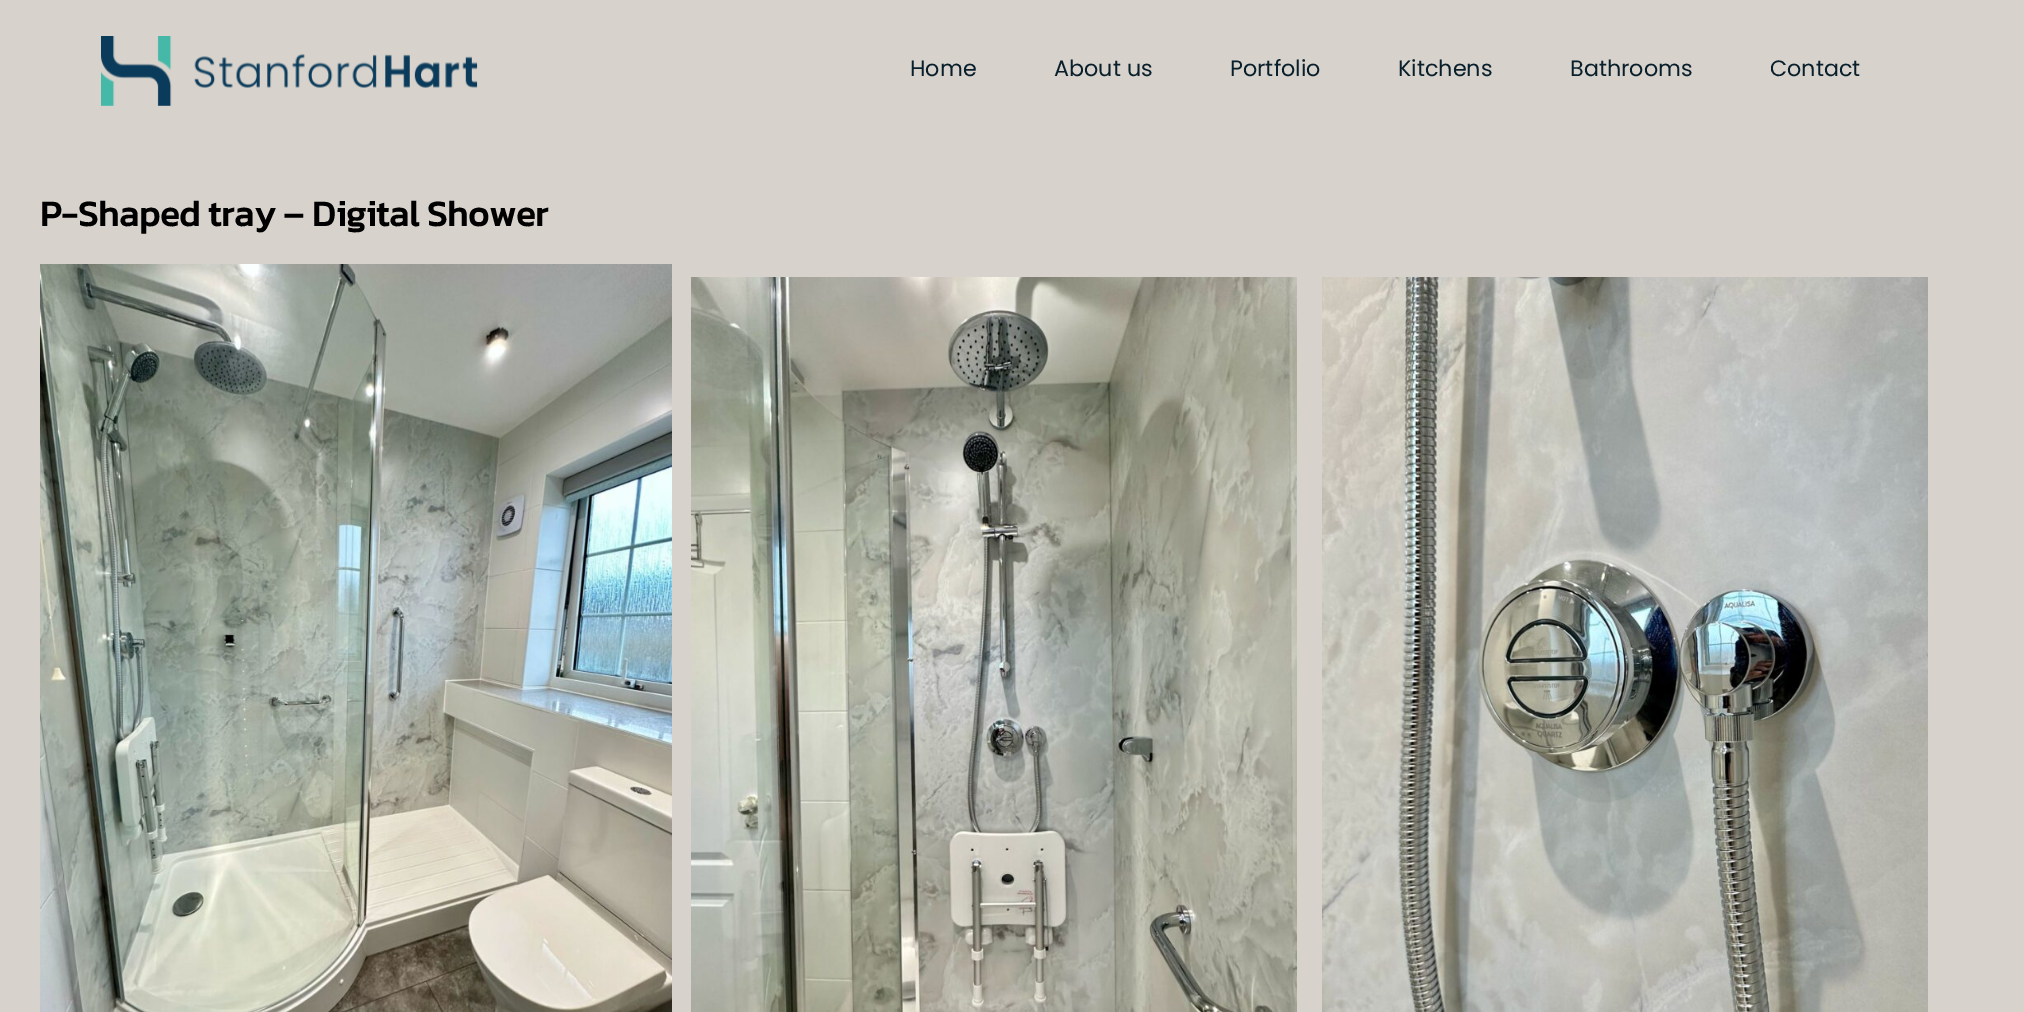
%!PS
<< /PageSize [2024 1012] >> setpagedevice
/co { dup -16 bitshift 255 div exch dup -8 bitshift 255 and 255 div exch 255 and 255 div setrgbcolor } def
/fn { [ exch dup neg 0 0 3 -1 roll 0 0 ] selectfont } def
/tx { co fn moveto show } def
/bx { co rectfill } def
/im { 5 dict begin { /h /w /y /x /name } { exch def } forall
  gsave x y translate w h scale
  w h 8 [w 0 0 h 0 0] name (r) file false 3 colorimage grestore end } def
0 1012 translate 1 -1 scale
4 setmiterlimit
0 0 2024 1012 16#D7D2CB bx
(media/1.raw) 101 36 377 70 im
(media/2.raw) 40 264 632 748 im
(media/3.raw) 691 277 606 735 im
(media/4.raw) 1322 277 606 735 im
(Home) 910 76 /Poppins-Regular 22.25 16#091F2C tx
(About us) 1054 76 /Poppins-Regular 22.25 16#091F2C tx
(Portfolio) 1230 76 /Poppins-Regular 22.25 16#091F2C tx
(Kitchens) 1398 76 /Poppins-Regular 22.25 16#091F2C tx
(Bathrooms) 1570 76 /Poppins-Regular 22.25 16#091F2C tx
(Contact) 1770 76 /Poppins-Regular 22.25 16#091F2C tx
(P-Shaped tray – Digital Shower) 40 226 /Kanit-Bold 36 16#000000 tx
showpage
